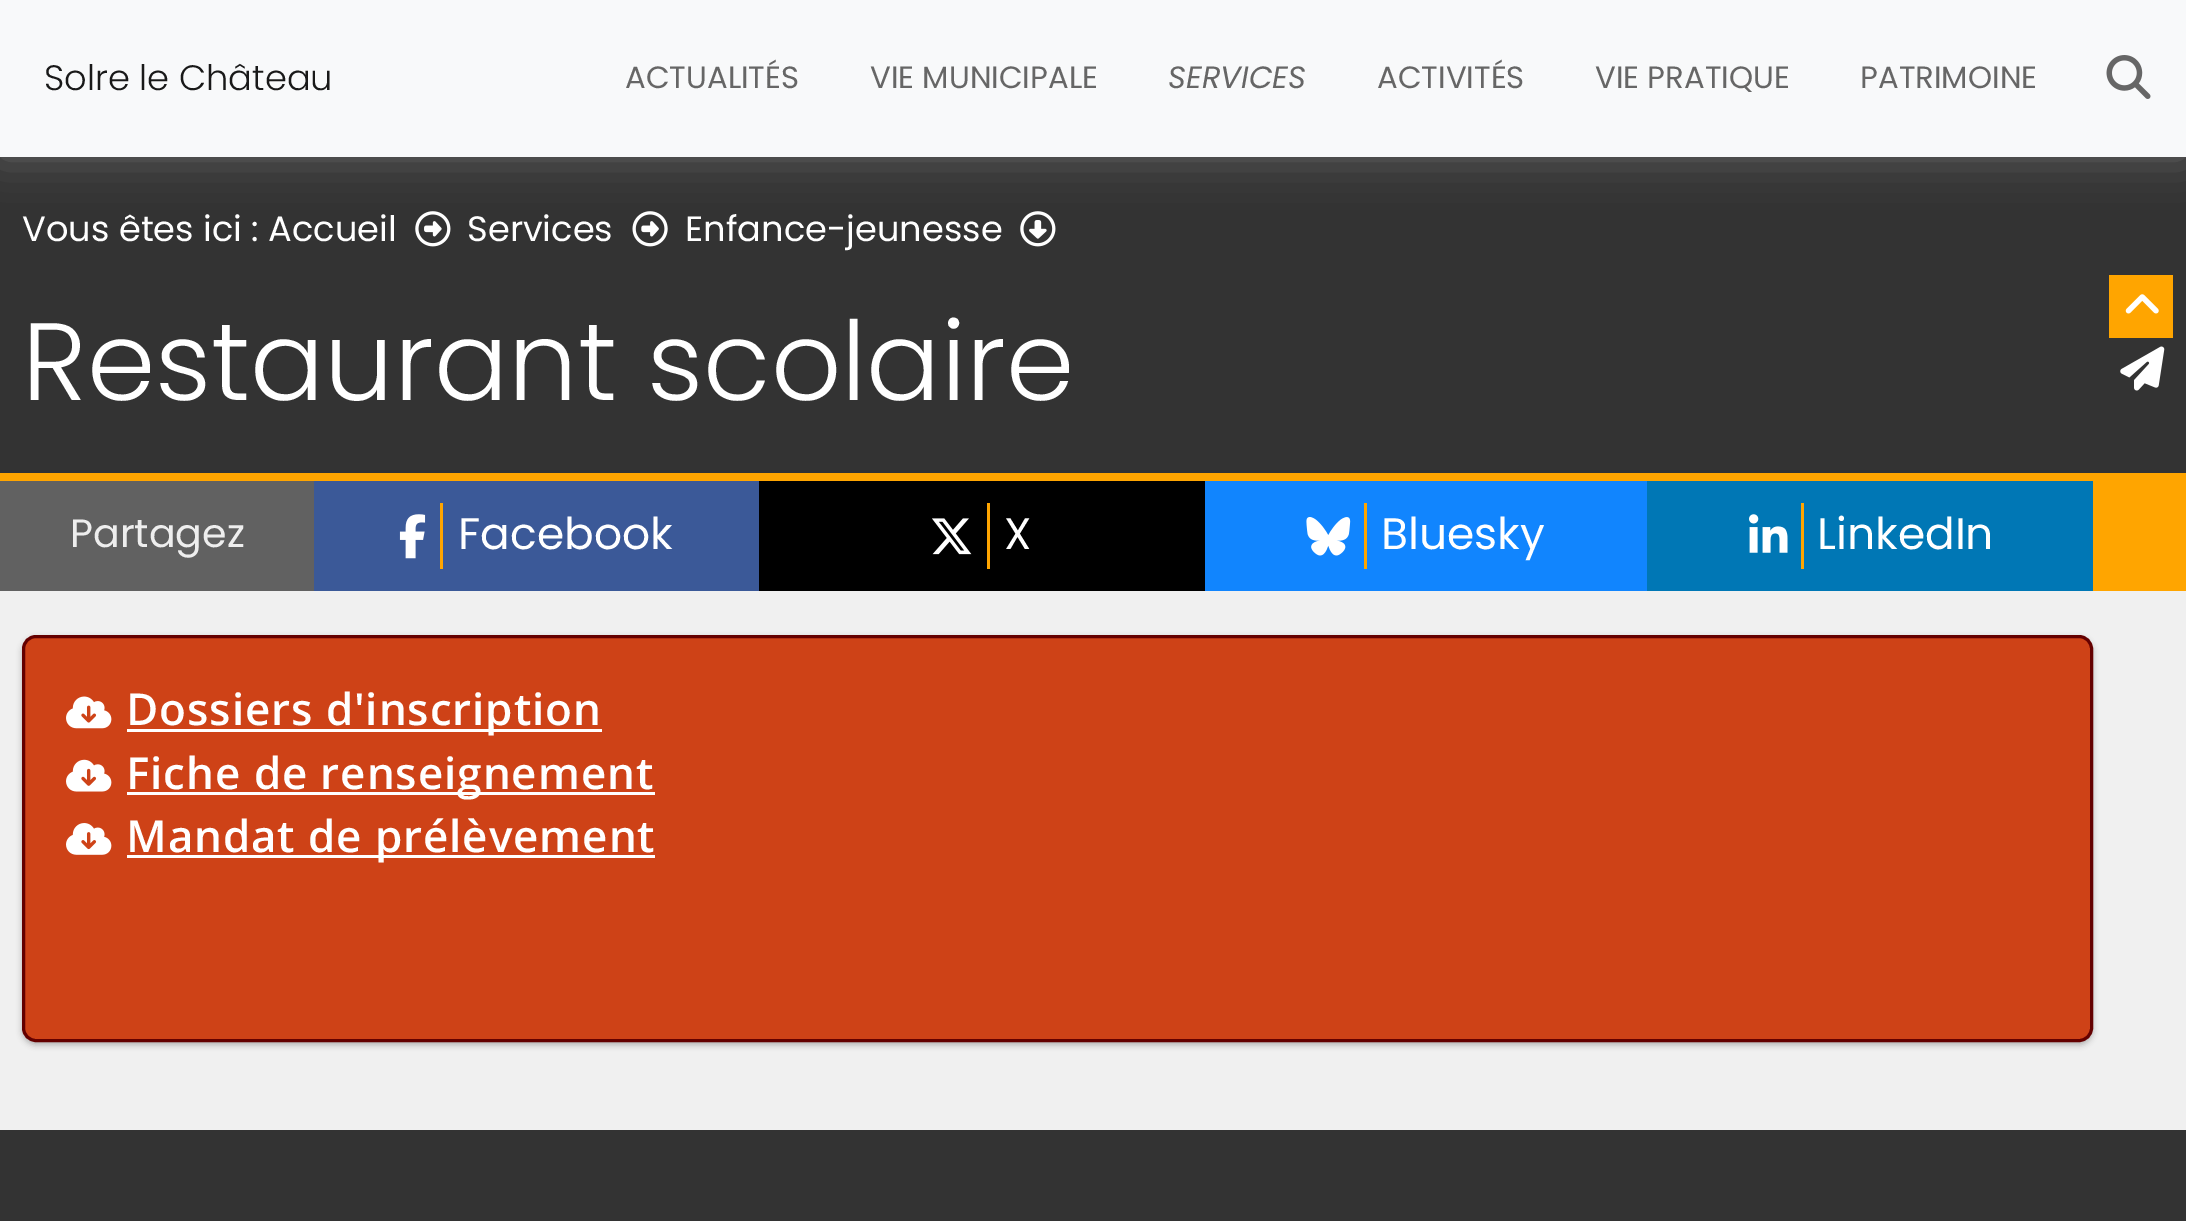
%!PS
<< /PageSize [2186 1221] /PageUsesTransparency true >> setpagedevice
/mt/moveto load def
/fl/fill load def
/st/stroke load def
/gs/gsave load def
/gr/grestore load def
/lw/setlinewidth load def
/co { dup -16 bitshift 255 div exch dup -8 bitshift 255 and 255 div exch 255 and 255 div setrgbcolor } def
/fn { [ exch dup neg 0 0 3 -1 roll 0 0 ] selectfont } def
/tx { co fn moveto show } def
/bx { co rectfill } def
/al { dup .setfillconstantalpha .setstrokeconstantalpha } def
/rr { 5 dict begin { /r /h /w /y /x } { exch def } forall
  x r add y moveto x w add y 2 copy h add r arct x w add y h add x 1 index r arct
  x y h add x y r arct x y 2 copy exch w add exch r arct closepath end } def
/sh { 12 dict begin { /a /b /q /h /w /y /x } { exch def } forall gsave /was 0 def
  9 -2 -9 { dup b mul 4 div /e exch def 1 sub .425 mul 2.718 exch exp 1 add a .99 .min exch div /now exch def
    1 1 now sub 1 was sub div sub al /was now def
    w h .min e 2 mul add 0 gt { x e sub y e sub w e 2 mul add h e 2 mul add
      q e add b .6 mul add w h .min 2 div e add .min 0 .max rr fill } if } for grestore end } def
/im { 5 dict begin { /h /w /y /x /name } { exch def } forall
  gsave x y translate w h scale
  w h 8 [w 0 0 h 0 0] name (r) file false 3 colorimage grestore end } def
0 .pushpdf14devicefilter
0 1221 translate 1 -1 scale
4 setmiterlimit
0 0 2186 1221 16#F0F0F0 bx
0 157 2186 316 16#333333 bx
(media/2.raw) 415 211 36 36 im
(media/3.raw) 632 211 36 36 im
(media/4.raw) 1020 211 36 36 im
16#666666 co
0 0 2186 157 0 20.5 1 sh
0 0 2186 157 16#F8F9FA bx
(media/1.raw) 2106 55 45 44 im
0 473 2093 8 16#FFA500 bx
2093 473 93 118 16#FFA500 bx
0 481 314 110 16#616161 bx
314 481 445 110 16#3B5998 bx
(media/5.raw) 399 514 27 45 im
440 503 3 66 16#FFA500 bx
759 481 446 110 16#000000 bx
(media/6.raw) 932 518 40 37 im
987 503 3 66 16#FFA500 bx
1205 481 442 110 16#1185FE bx
(media/7.raw) 1306 517 45 39 im
1364 503 3 66 16#FFA500 bx
1647 481 446 110 16#0077B5 bx
(media/8.raw) 1749 514 39 39 im
1801 503 3 66 16#FFA500 bx
2109 275 64 63 16#FFA500 bx
(media/9.raw) 2125 294 34 20 im
(media/10.raw) 2120 346 45 45 im
16#000000 co
22 638 2071 407 14 3 .25 sh
16#CE4217 co
23.5 636.5 2068 404 12.5 rr gs fl gr
16#640000 co
3 lw
st
(media/11.raw) 66 696 46 33 im
127 729 475 3 16#FFFFFF bx
(media/12.raw) 66 759 46 33 im
127 792 528 3 16#FFFFFF bx
(media/13.raw) 66 823 46 32 im
127 855 528 3 16#FFFFFF bx
0 1130 2186 91 16#333333 bx
(Solre le Château) 44 90 /Poppins-Light 35.25 16#191919 tx
(ACTUALITÉS) 625 88 /Poppins-Regular 30.75 16#666666 tx
(VIE MUNICIPALE) 870 88 /Poppins-Regular 30.75 16#666666 tx
(SERVICES) 1168 88 /Poppins-Italic 30.75 16#666666 tx
(ACTIVITÉS) 1377 88 /Poppins-Regular 30.75 16#666666 tx
(VIE PRATIQUE) 1595 88 /Poppins-Regular 30.75 16#666666 tx
(PATRIMOINE) 1860 88 /Poppins-Regular 30.75 16#666666 tx
(Vous êtes ici : Accueil) 22 241 /Poppins-Regular 35.25 16#FFFFFF tx
(Services) 467 241 /Poppins-Regular 35.25 16#FFFFFF tx
(Enfance-jeunesse) 685 241 /Poppins-Regular 35.25 16#FFFFFF tx
(Restaurant scolaire) 22 400 /Poppins-Light 110 16#FFFFFF tx
(Partagez) 70 547 /Poppins-Regular 39.5 16#EEEEEE tx
(Facebook) 458 549 /Poppins-Regular 44 16#FFFFFF tx
(X) 1004 549 /Poppins-Regular 44 16#FFFFFF tx
(Bluesky) 1381 549 /Poppins-Regular 44 16#FFFFFF tx
(LinkedIn) 1817 549 /Poppins-Regular 44 16#FFFFFF tx
/OpenSans-SemiBold 44 fn
126 725 mt .9 0 (Dossiers d'inscription) ashow
126 789 mt .9 0 (Fiche de renseignement) ashow
126 852 mt .9 0 (Mandat de prélèvement) ashow
.poppdf14devicefilter showpage
